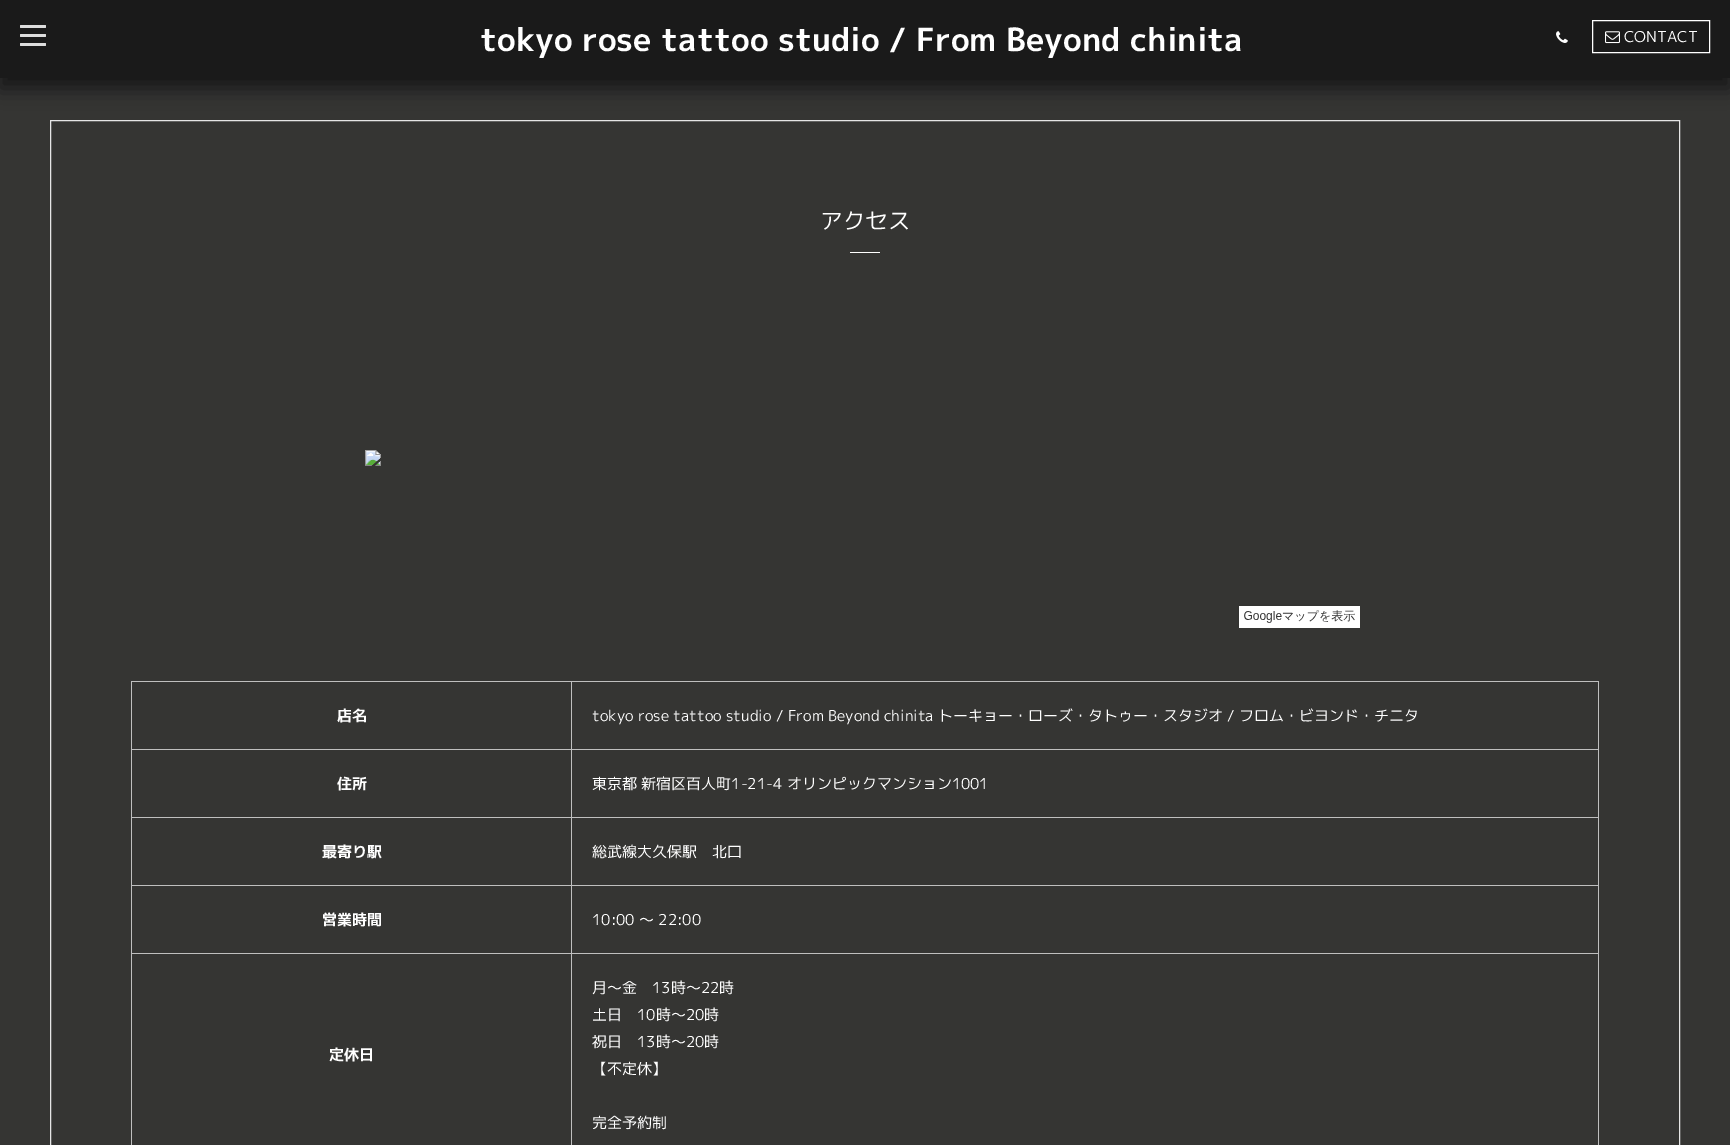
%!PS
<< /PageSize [1730 1145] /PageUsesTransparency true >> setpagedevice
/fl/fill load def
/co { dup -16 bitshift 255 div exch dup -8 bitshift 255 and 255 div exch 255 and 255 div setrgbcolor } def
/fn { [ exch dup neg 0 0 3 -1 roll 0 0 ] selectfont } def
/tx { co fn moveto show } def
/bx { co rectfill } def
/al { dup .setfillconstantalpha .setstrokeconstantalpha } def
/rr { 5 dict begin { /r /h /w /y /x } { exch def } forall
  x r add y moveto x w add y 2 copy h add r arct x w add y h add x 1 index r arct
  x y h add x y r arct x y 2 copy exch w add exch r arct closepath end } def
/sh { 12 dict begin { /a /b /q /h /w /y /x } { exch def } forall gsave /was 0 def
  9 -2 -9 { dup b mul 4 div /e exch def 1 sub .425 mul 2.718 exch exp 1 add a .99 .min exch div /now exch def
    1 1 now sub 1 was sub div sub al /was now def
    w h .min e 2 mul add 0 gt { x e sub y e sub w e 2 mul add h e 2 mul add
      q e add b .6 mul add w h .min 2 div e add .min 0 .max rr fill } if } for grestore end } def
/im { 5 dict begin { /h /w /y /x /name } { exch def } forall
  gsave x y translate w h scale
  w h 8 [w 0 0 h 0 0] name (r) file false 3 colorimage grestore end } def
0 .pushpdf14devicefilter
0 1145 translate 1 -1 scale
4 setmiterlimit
0 0 1730 1145 16#353533 bx
16#000000 co
0 10 1730 78 0 10 .6 sh
0 0 1730 78 16#1A1A1A bx
16#DDDDDD co
20 34 26 3 1 rr fl
20 25 26 3 1 rr fl
20 43 26 3 1 rr fl
(media/1.raw) 1556 31 12 12 im
16#FFFFFF co
1592.5 20.5 117 32 rectstroke
(media/2.raw) 1605 31 15 13 im
16#E6E6E6 co
50.5 120.5 1629 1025 rectstroke
850 252 30 1 16#FFFFFF bx
(media/3.raw) 365 450 995 178 im
131 681 1468 1 16#BFBFBF bx
1598 681 1 464 16#BFBFBF bx
571 953 1 192 16#BFBFBF bx
571 953 1028 1 16#BFBFBF bx
571 885 1 69 16#BFBFBF bx
571 885 1028 1 16#BFBFBF bx
571 817 1 69 16#BFBFBF bx
571 817 1028 1 16#BFBFBF bx
571 749 1 69 16#BFBFBF bx
571 749 1028 1 16#BFBFBF bx
571 681 1 69 16#BFBFBF bx
131 953 1 192 16#BFBFBF bx
131 953 441 1 16#BFBFBF bx
131 885 1 69 16#BFBFBF bx
131 885 441 1 16#BFBFBF bx
131 817 1 69 16#BFBFBF bx
131 817 441 1 16#BFBFBF bx
131 749 1 69 16#BFBFBF bx
131 749 441 1 16#BFBFBF bx
131 681 1 69 16#BFBFBF bx
(tokyo rose tattoo studio / From Beyond chinita) 480 51 /MPLUS1p-Bold 32 16#FFFFFF tx
(CONTACT) 1624 42 /MPLUS1p-Regular 15 16#FFFFFF tx
(アクセス) 820 229 /MPLUS1p-Regular 22.5 16#FFFFFF tx
(店名) 337 721 /MPLUS1p-Bold 15 16#FFFFFF tx
(tokyo rose tattoo studio / From Beyond chinita トーキョー・ローズ・タトゥー・スタジオ / フロム・ビヨンド・チニタ) 592 721 /MPLUS1p-Regular 15 16#FFFFFF tx
(住所) 337 789 /MPLUS1p-Bold 15 16#FFFFFF tx
(東京都 新宿区百人町1-21-4 オリンピックマンション1001) 592 789 /MPLUS1p-Regular 15 16#FFFFFF tx
(最寄り駅) 322 857 /MPLUS1p-Bold 15 16#FFFFFF tx
(総武線大久保駅　北口) 592 857 /MPLUS1p-Regular 15 16#FFFFFF tx
(営業時間) 322 925 /MPLUS1p-Bold 15 16#FFFFFF tx
(10:00 ～ 22:00) 592 925 /MPLUS1p-Regular 15 16#FFFFFF tx
(定休日) 329 1060 /MPLUS1p-Bold 15 16#FFFFFF tx
(月〜金　13時〜22時) 592 993 /MPLUS1p-Regular 15 16#FFFFFF tx
(土日　10時〜20時) 592 1020 /MPLUS1p-Regular 15 16#FFFFFF tx
(祝日　13時〜20時) 592 1047 /MPLUS1p-Regular 15 16#FFFFFF tx
(【不定休】) 592 1074 /MPLUS1p-Regular 15 16#FFFFFF tx
(完全予約制) 592 1128 /MPLUS1p-Regular 15 16#FFFFFF tx
.poppdf14devicefilter showpage
